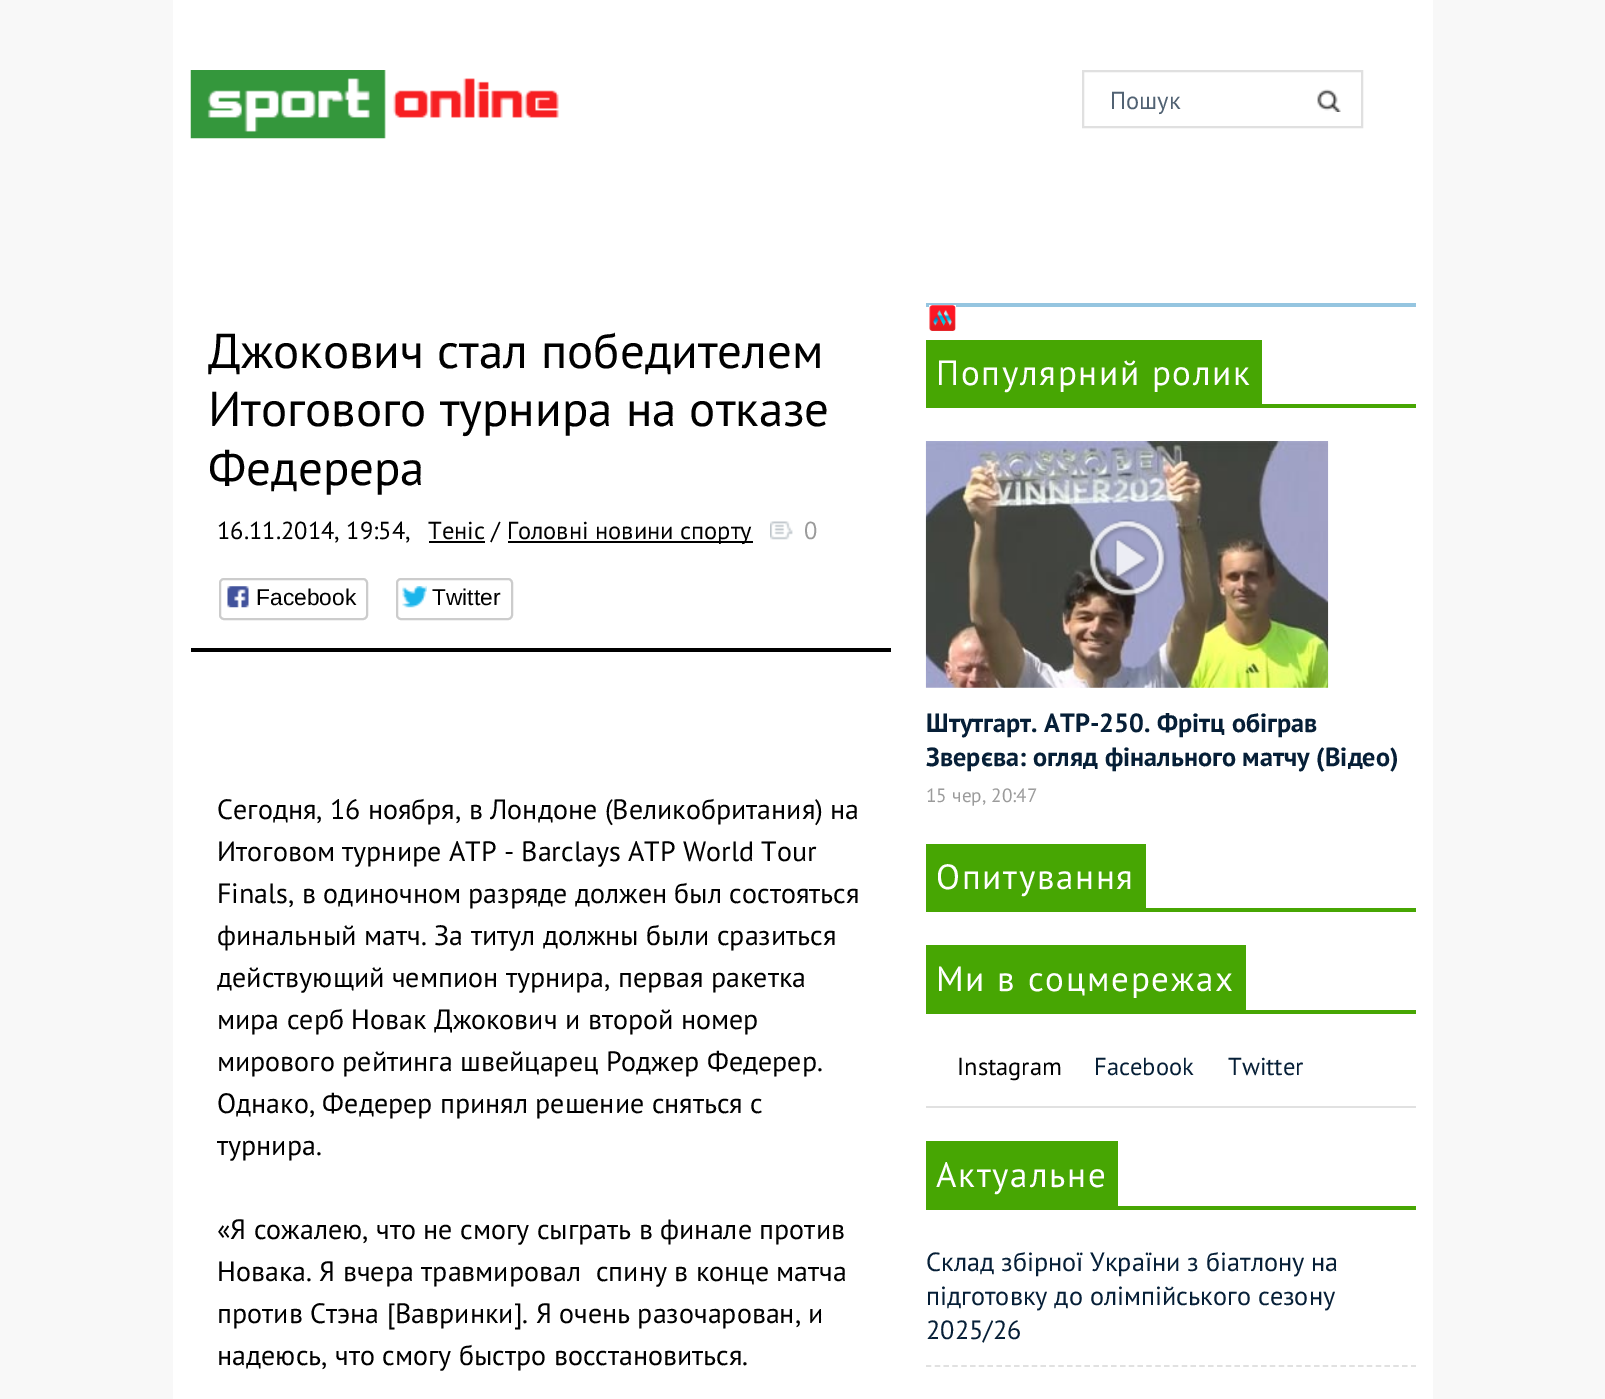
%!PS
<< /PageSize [1605 1399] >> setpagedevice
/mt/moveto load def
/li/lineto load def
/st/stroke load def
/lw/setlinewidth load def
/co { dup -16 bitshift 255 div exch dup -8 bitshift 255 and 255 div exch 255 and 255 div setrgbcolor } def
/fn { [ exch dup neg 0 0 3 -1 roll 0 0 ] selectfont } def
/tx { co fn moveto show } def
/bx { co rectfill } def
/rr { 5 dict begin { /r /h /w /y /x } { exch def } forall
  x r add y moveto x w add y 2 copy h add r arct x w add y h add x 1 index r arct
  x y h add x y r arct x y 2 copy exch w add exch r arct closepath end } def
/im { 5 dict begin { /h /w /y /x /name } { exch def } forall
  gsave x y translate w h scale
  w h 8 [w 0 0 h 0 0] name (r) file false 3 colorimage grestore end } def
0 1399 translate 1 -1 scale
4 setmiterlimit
0 0 1605 1399 16#F8F8F8 bx
173 0 1260 1399 16#FFFFFF bx
(media/1.raw) 190 70 369 69 im
16#E0E0E0 co
2 lw
1083 71 279 56 rectstroke
(media/2.raw) 1317 89 24 23 im
191 648 700 4 16#000000 bx
429 541 56 2 16#000000 bx
508 541 245 2 16#000000 bx
(media/3.raw) 770 521 23 19 im
16#CCCCCC co
220 579 147 40 4 rr st
(media/4.raw) 227 586 22 22 im
397 579 115 40 4 rr st
(media/5.raw) 402 586 25 22 im
926 303 490 4 16#95C5E0 bx
929 305 27 2 16#FFFFFF bx
(media/6.raw) 929 305 27 26 im
926 404 490 4 16#47A603 bx
926 340 336 64 16#47A603 bx
(media/7.raw) 925 441 404 247 im
(media/8.raw) 1089 519 79 80 im
926 908 490 4 16#47A603 bx
926 844 220 64 16#47A603 bx
926 1010 490 4 16#47A603 bx
926 945 320 65 16#47A603 bx
926 1106 490 2 16#E1E1E1 bx
926 1206 490 4 16#47A603 bx
926 1141 192 65 16#47A603 bx
16#E1E1E1 co
1.8 lw
[5.25 3.57] 0 setdash
926 1366 mt 1416 1366 li st
(Пошук) 1110 109 /PTSans-Regular 24.5 16#516273 tx
(Джокович стал победителем) 208 368 /PTSans-Regular 49 16#000000 tx
(Итогового турнира на отказе) 208 426 /PTSans-Regular 49 16#000000 tx
(Федерера) 208 485 /PTSans-Regular 49 16#000000 tx
(16.11.2014, 19:54,) 217 539 /PTSans-Regular 24.5 16#000000 tx
(Теніс /) 428 539 /PTSans-Regular 24.5 16#000000 tx
(Головні новини спорту) 507 539 /PTSans-Regular 24.5 16#000000 tx
(0) 804 539 /PTSans-Regular 24.5 16#9B9B9B tx
(Facebook) 256 605 /LiberationSans-Regular 22.75 16#000000 tx
(Twitter) 432 605 /LiberationSans-Regular 22.75 16#000000 tx
(Сегодня, 16 ноября, в Лондоне \(Великобритания\) на) 217 819 /PTSans-Regular 28 16#000000 tx
(Итоговом турнире АТР - Barclays ATP World Tour) 217 861 /PTSans-Regular 28 16#000000 tx
(Finals, в одиночном разряде должен был состояться) 217 903 /PTSans-Regular 28 16#000000 tx
(финальный матч. За титул должны были сразиться) 217 945 /PTSans-Regular 28 16#000000 tx
(действующий чемпион турнира, первая ракетка) 217 987 /PTSans-Regular 28 16#000000 tx
(мира серб Новак Джокович и второй номер) 217 1029 /PTSans-Regular 28 16#000000 tx
(мирового рейтинга швейцарец Роджер Федерер.) 217 1071 /PTSans-Regular 28 16#000000 tx
(Однако, Федерер принял решение сняться с) 217 1113 /PTSans-Regular 28 16#000000 tx
(турнира.) 217 1155 /PTSans-Regular 28 16#000000 tx
(«Я сожалею, что не смогу сыграть в финале против) 217 1239 /PTSans-Regular 28 16#000000 tx
(Новака. Я вчера травмировал  спину в конце матча) 217 1281 /PTSans-Regular 28 16#000000 tx
(против Стэна [Вавринки]. Я очень разочарован, и) 217 1323 /PTSans-Regular 28 16#000000 tx
(надеюсь, что смогу быстро восстановиться.) 217 1365 /PTSans-Regular 28 16#000000 tx
/PTSans-Regular 35 fn
16#FFFFFF co
936 385 mt 1.75 0 (Популярний ролик) ashow
(Штутгарт. ATP-250. Фрітц обіграв) 926 732 /PTSans-Bold 26.25 16#061F37 tx
(Зверєва: огляд фінального матчу \(Відео\)) 926 766 /PTSans-Bold 26.25 16#061F37 tx
(15 чер, 20:47) 926 802 /PTSans-Regular 19.25 16#9B9B9B tx
/PTSans-Regular 35 fn
16#FFFFFF co
936 889 mt 1.75 0 (Опитування) ashow
936 991 mt 1.75 0 (Ми в соцмережах) ashow
(Instagram) 957 1075 /PTSans-Regular 24.5 16#000000 tx
(Facebook) 1094 1075 /PTSans-Regular 24.5 16#061F37 tx
(Twitter) 1228 1075 /PTSans-Regular 24.5 16#061F37 tx
/PTSans-Regular 35 fn
16#FFFFFF co
936 1187 mt 1.75 0 (Актуальне) ashow
(Склад збірної України з біатлону на) 926 1271 /PTSans-Regular 26.25 16#061F37 tx
(підготовку до олімпійського сезону) 926 1305 /PTSans-Regular 26.25 16#061F37 tx
(2025/26) 926 1339 /PTSans-Regular 26.25 16#061F37 tx
showpage
